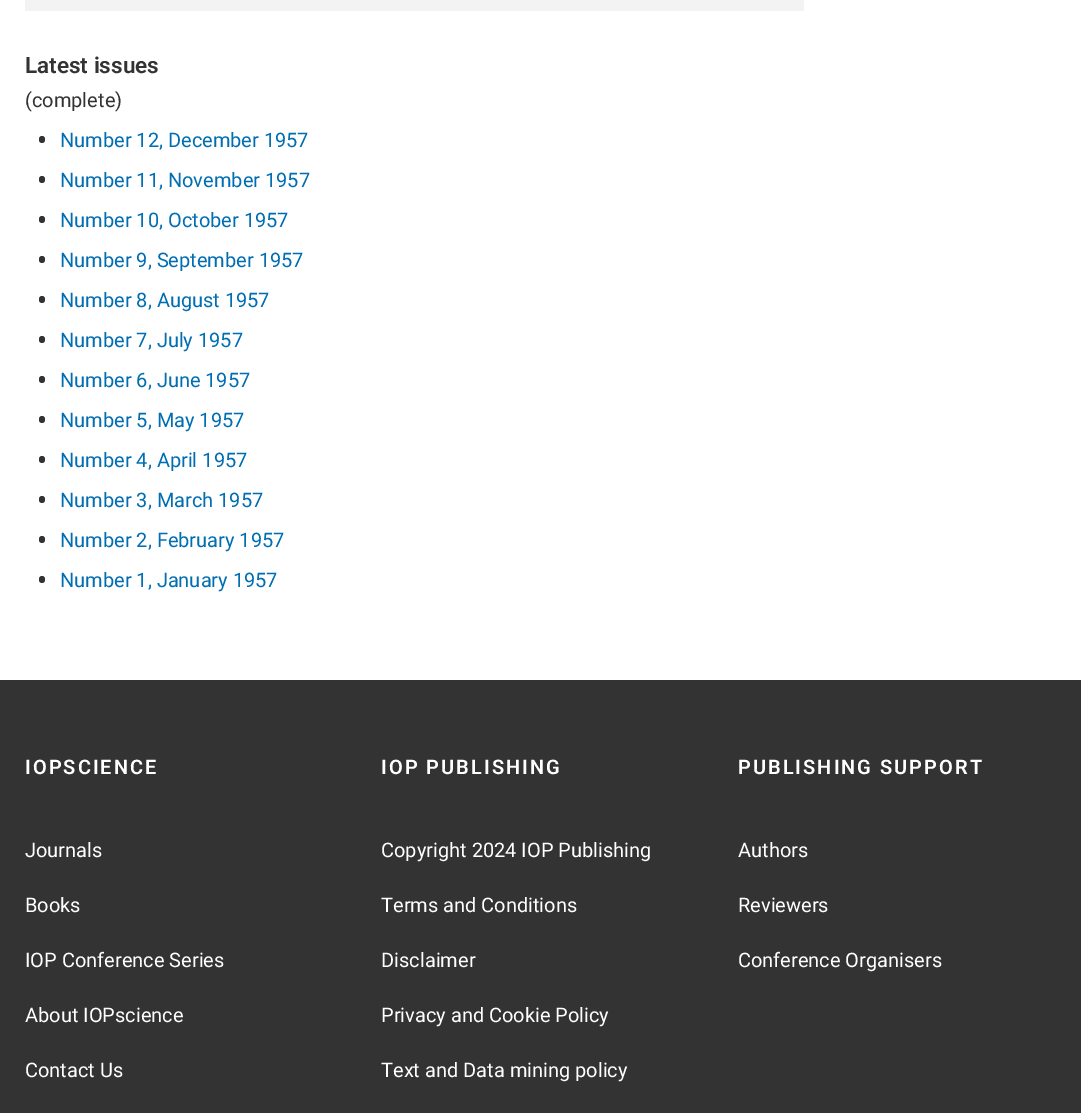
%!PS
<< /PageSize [1081 1113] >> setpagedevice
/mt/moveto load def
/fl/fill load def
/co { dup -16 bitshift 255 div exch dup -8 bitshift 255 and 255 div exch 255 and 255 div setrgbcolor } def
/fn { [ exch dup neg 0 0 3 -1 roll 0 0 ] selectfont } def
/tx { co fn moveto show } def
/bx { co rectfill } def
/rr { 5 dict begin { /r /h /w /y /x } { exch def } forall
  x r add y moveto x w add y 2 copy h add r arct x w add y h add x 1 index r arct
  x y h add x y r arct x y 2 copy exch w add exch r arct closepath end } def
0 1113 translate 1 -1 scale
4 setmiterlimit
0 0 1081 1113 16#FFFFFF bx
25 0 779 11 16#F3F3F3 bx
16#333333 co
39 136 6 7 3 rr fl
39 176 6 7 3 rr fl
39 216 6 7 3 rr fl
39 256 6 7 3 rr fl
39 296 6 7 3 rr fl
39 336 6 7 3 rr fl
39 376 6 7 3 rr fl
39 416 6 7 3 rr fl
39 456 6 7 3 rr fl
39 496 6 7 3 rr fl
39 536 6 7 3 rr fl
39 576 6 7 3 rr fl
0 680 1081 433 16#333333 bx
(Latest issues) 25 73 /Roboto-SemiBold 22.5 16#333333 tx
(\(complete\)) 25 107 /Roboto-Regular 20 16#333333 tx
(Number 12, December 1957) 60 147 /Roboto-Regular 20 16#006EB2 tx
(Number 11, November 1957) 60 187 /Roboto-Regular 20 16#006EB2 tx
(Number 10, October 1957) 60 227 /Roboto-Regular 20 16#006EB2 tx
(Number 9, September 1957) 60 267 /Roboto-Regular 20 16#006EB2 tx
(Number 8, August 1957) 60 307 /Roboto-Regular 20 16#006EB2 tx
(Number 7, July 1957) 60 347 /Roboto-Regular 20 16#006EB2 tx
(Number 6, June 1957) 60 387 /Roboto-Regular 20 16#006EB2 tx
(Number 5, May 1957) 60 427 /Roboto-Regular 20 16#006EB2 tx
(Number 4, April 1957) 60 467 /Roboto-Regular 20 16#006EB2 tx
(Number 3, March 1957) 60 507 /Roboto-Regular 20 16#006EB2 tx
(Number 2, February 1957) 60 547 /Roboto-Regular 20 16#006EB2 tx
(Number 1, January 1957) 60 587 /Roboto-Regular 20 16#006EB2 tx
/Roboto-SemiBold 20 fn
16#FFFFFF co
25 774 mt 2 0 (IOPSCIENCE) ashow
(Journals) 25 857 /Roboto-Regular 20 16#FFFFFF tx
(Books) 25 912 /Roboto-Regular 20 16#FFFFFF tx
(IOP Conference Series) 25 967 /Roboto-Regular 20 16#FFFFFF tx
(About IOPscience) 25 1022 /Roboto-Regular 20 16#FFFFFF tx
(Contact Us) 25 1077 /Roboto-Regular 20 16#FFFFFF tx
/Roboto-SemiBold 20 fn
381 774 mt 2 0 (IOP PUBLISHING) ashow
(Copyright 2024 IOP Publishing) 381 857 /Roboto-Regular 20 16#FFFFFF tx
(Terms and Conditions) 381 912 /Roboto-Regular 20 16#FFFFFF tx
(Disclaimer) 381 967 /Roboto-Regular 20 16#FFFFFF tx
(Privacy and Cookie Policy) 381 1022 /Roboto-Regular 20 16#FFFFFF tx
(Text and Data mining policy) 381 1077 /Roboto-Regular 20 16#FFFFFF tx
/Roboto-SemiBold 20 fn
738 774 mt 2 0 (PUBLISHING SUPPORT) ashow
(Authors) 738 857 /Roboto-Regular 20 16#FFFFFF tx
(Reviewers) 738 912 /Roboto-Regular 20 16#FFFFFF tx
(Conference Organisers) 738 967 /Roboto-Regular 20 16#FFFFFF tx
showpage
